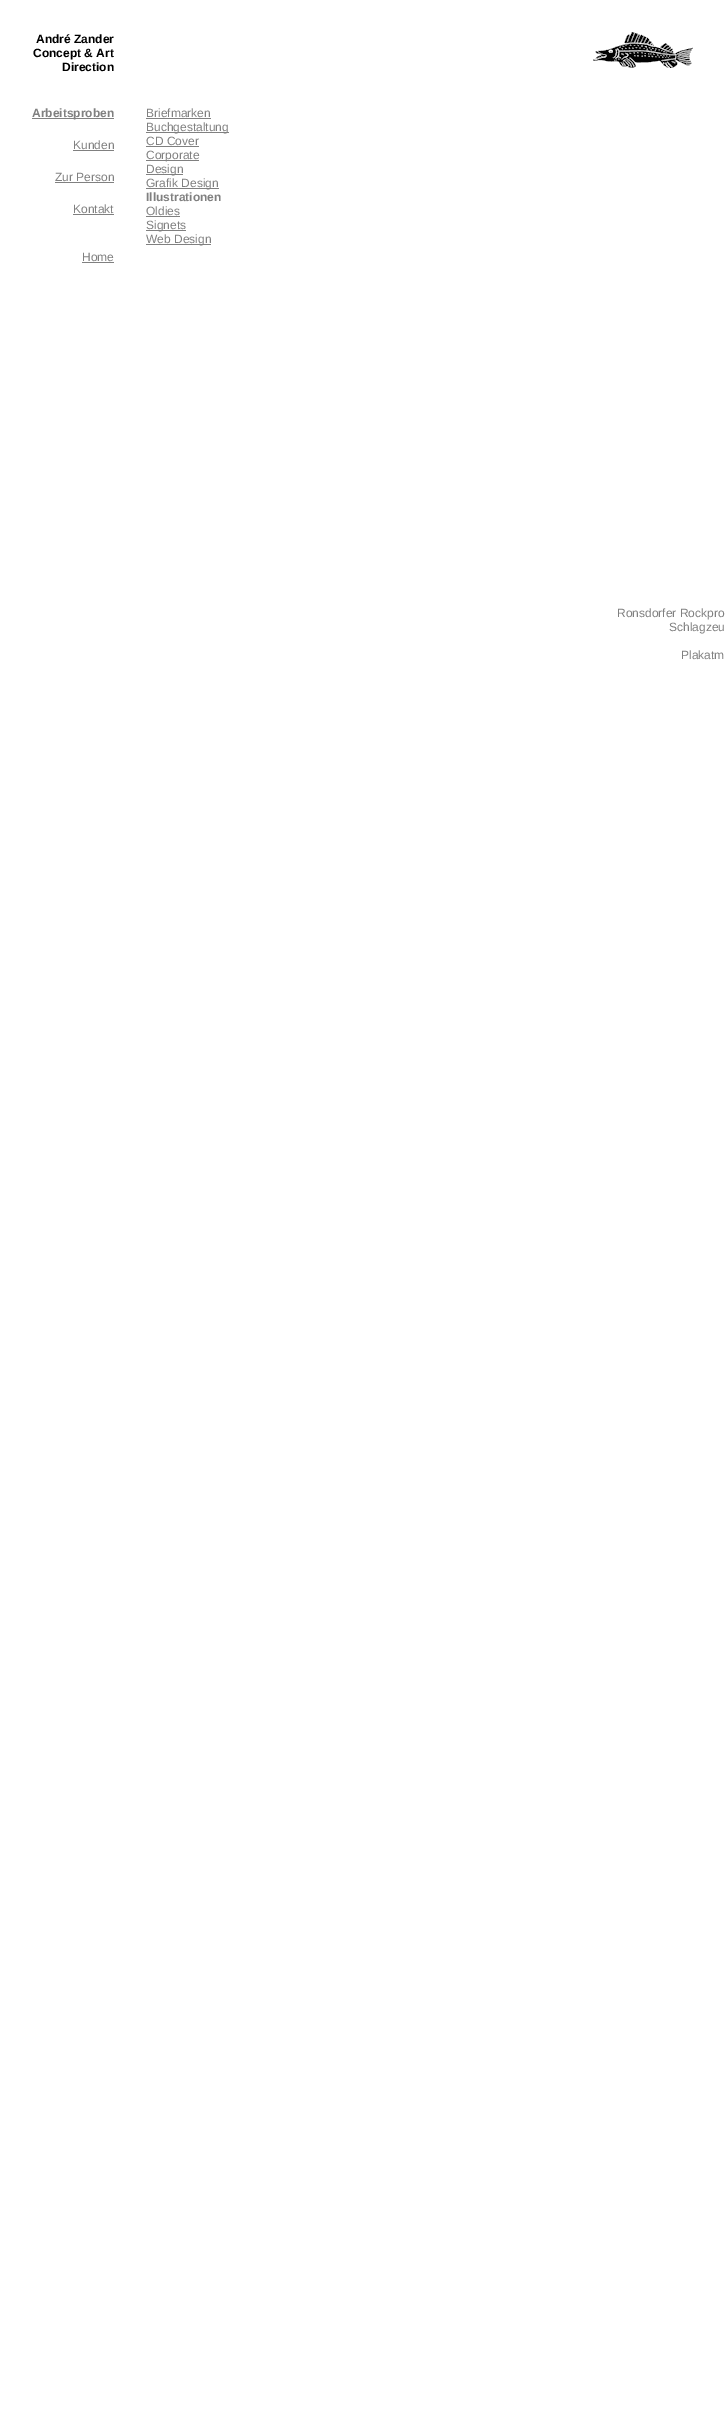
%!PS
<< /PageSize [725 2426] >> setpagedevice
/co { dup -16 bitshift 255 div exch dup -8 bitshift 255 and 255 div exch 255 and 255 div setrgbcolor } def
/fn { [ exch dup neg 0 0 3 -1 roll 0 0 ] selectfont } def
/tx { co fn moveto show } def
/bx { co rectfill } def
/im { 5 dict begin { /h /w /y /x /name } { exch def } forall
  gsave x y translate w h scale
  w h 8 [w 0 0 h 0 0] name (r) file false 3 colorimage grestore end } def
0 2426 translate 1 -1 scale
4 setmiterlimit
0 0 725 2426 16#FFFFFF bx
(media/1.raw) 593 32 100 36 im
32 118 82 1 16#808080 bx
73 150 41 1 16#808080 bx
55 182 59 1 16#808080 bx
73 214 41 1 16#808080 bx
82 262 32 1 16#808080 bx
146 118 65 1 16#808080 bx
146 132 83 1 16#808080 bx
146 146 53 1 16#808080 bx
146 160 53 1 16#808080 bx
146 174 37 1 16#808080 bx
146 188 73 1 16#808080 bx
146 216 34 1 16#808080 bx
146 230 40 1 16#808080 bx
146 244 65 1 16#808080 bx
(André Zander) 36 43 /LiberationSans-Bold 12 16#000000 tx
(Concept & Art) 33 57 /LiberationSans-Bold 12 16#000000 tx
(Direction) 62 71 /LiberationSans-Bold 12 16#000000 tx
(Arbeitsproben) 32 117 /LiberationSans-Bold 12 16#808080 tx
(Kunden) 73 149 /LiberationSans-Regular 12 16#808080 tx
(Zur Person) 55 181 /LiberationSans-Regular 12 16#808080 tx
(Kontakt) 73 213 /LiberationSans-Regular 12 16#808080 tx
(Home) 82 261 /LiberationSans-Regular 12 16#808080 tx
(Briefmarken) 146 117 /LiberationSans-Regular 12 16#808080 tx
(Buchgestaltung) 146 131 /LiberationSans-Regular 12 16#808080 tx
(CD Cover) 146 145 /LiberationSans-Regular 12 16#808080 tx
(Corporate) 146 159 /LiberationSans-Regular 12 16#808080 tx
(Design) 146 173 /LiberationSans-Regular 12 16#808080 tx
(Grafik Design) 146 187 /LiberationSans-Regular 12 16#808080 tx
(Illustrationen) 146 201 /LiberationSans-Bold 12 16#808080 tx
(Oldies) 146 215 /LiberationSans-Regular 12 16#808080 tx
(Signets) 146 229 /LiberationSans-Regular 12 16#808080 tx
(Web Design) 146 243 /LiberationSans-Regular 12 16#808080 tx
(Ronsdorfer Rockpro) 617 617 /LiberationSans-Regular 12 16#808080 tx
(Schlagzeu) 669 631 /LiberationSans-Regular 12 16#808080 tx
(Plakatm) 681 659 /LiberationSans-Regular 12 16#808080 tx
showpage
